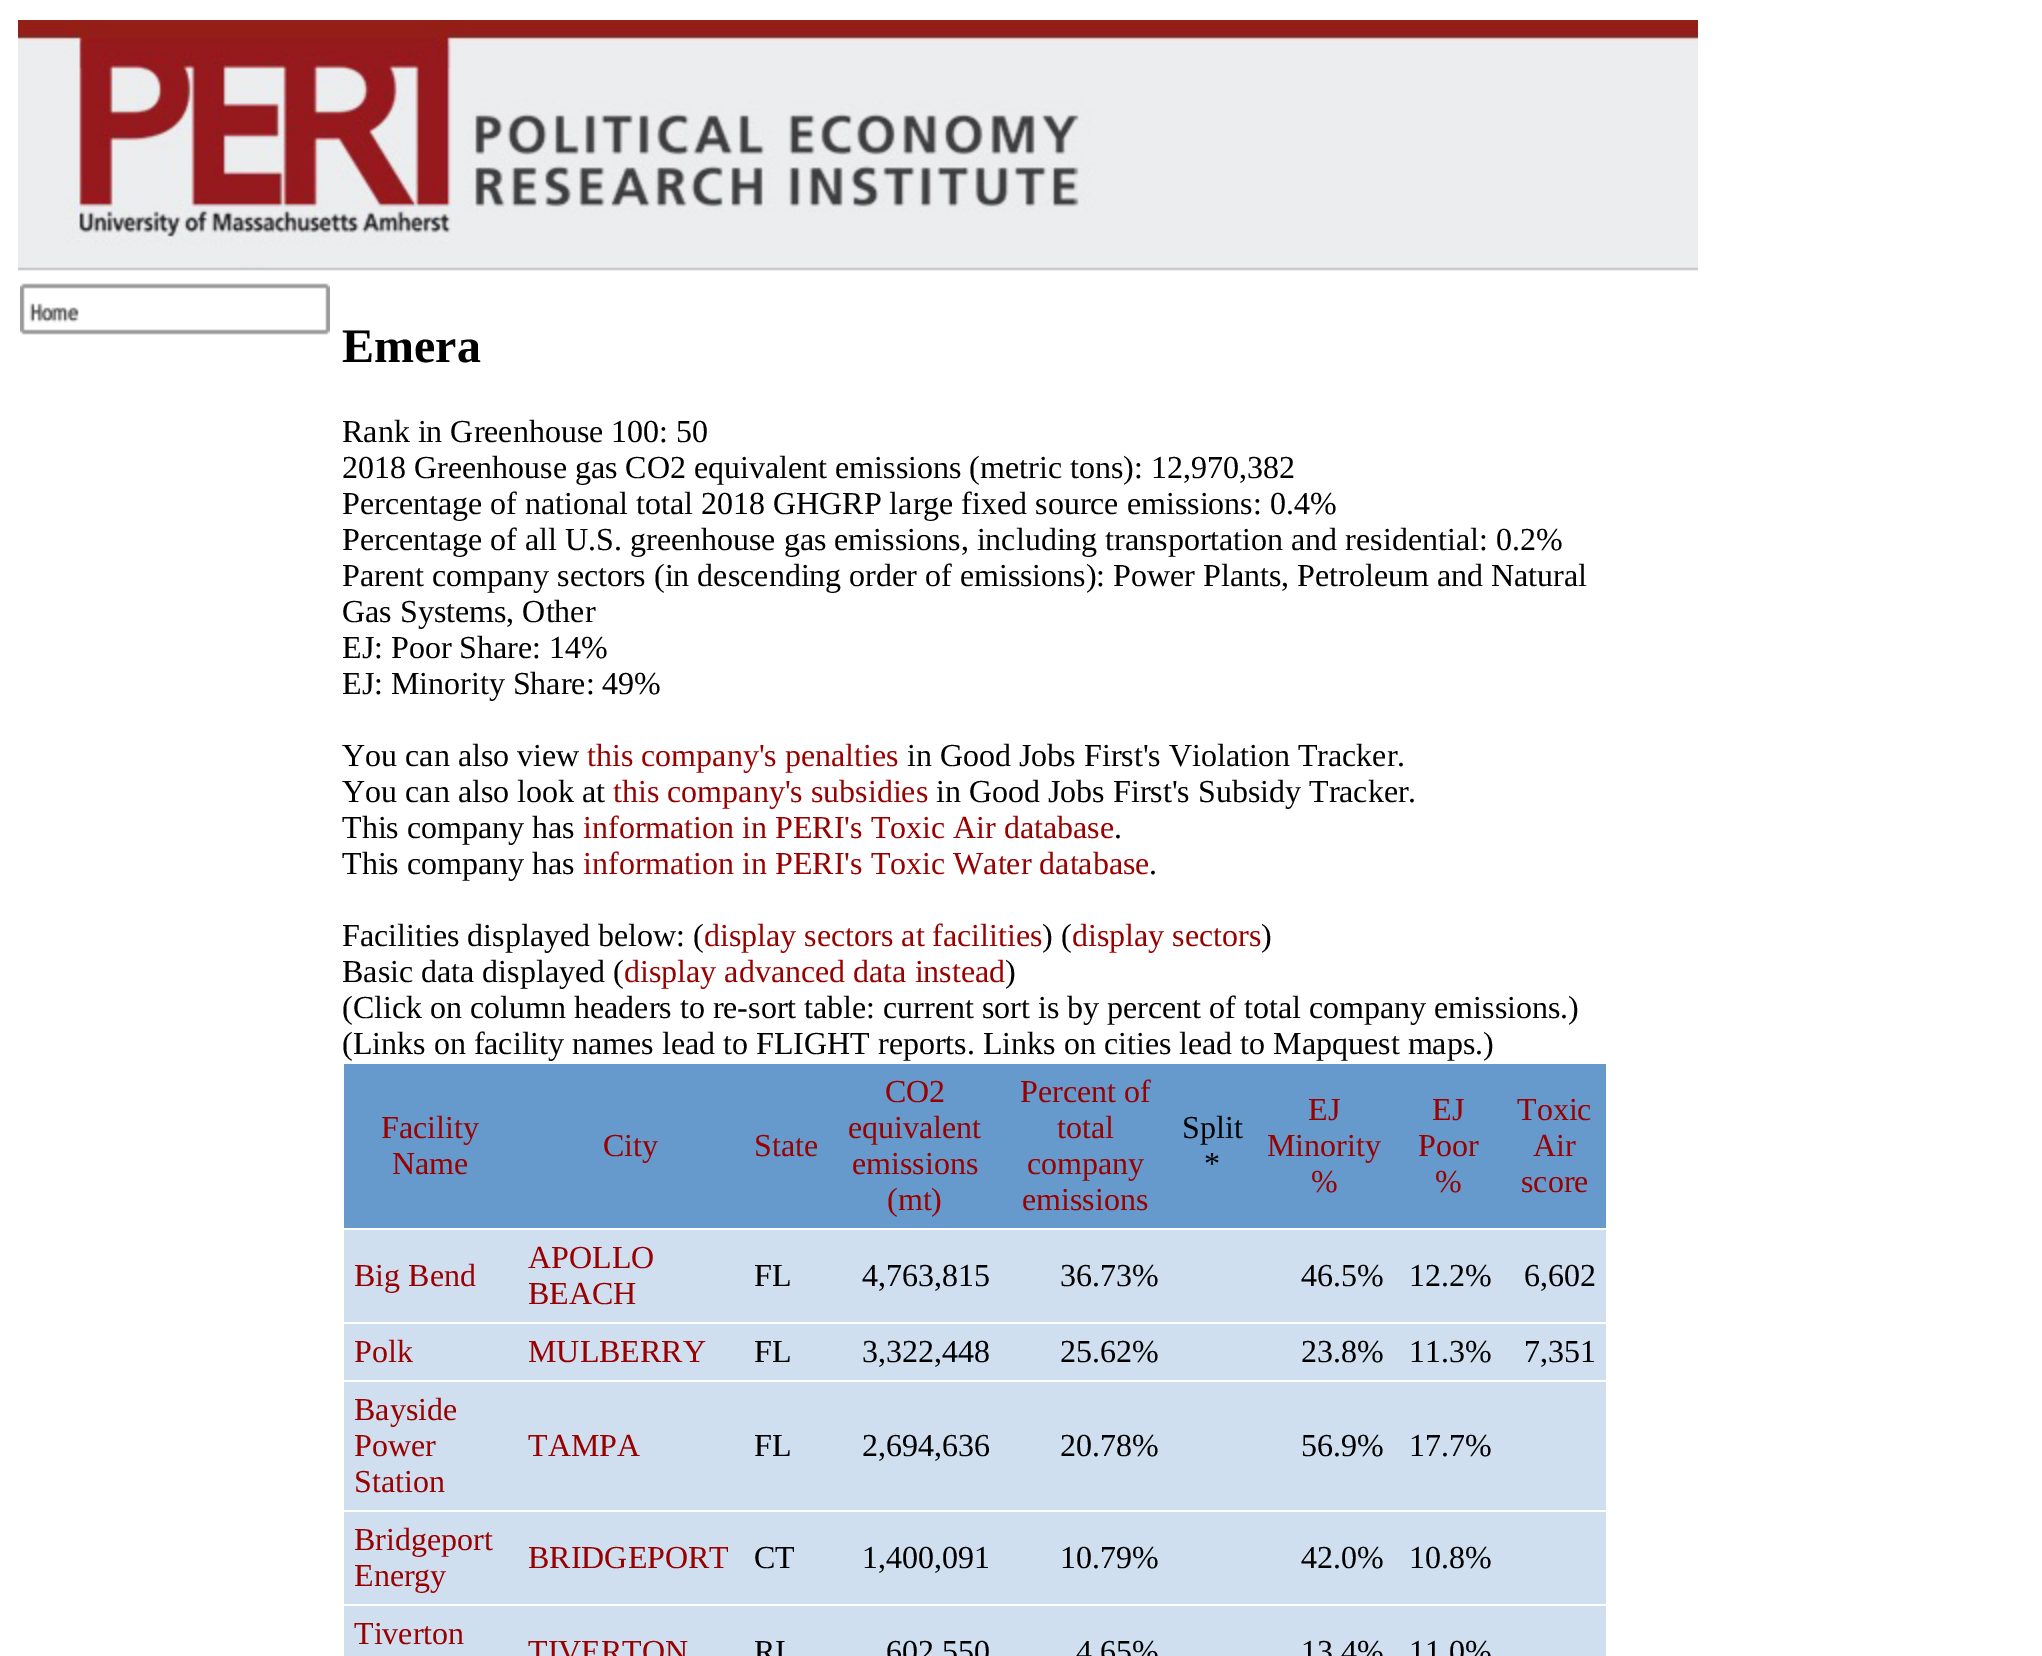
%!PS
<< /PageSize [2042 1656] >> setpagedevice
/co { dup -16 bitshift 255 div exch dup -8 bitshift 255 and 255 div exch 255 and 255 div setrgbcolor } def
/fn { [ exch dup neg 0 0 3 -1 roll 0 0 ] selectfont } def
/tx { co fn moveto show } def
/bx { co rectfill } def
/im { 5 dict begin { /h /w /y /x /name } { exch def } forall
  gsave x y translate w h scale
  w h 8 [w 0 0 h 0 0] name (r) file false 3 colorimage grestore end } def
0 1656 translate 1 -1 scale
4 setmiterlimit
0 0 2042 1656 16#FFFFFF bx
(media/1.raw) 18 20 1680 251 im
(media/2.raw) 20 283 310 52 im
344 1064 1262 164 16#6699CC bx
344 1230 1262 92 16#CFDFEF bx
344 1324 1262 56 16#CFDFEF bx
344 1382 1262 128 16#CFDFEF bx
344 1512 1262 92 16#CFDFEF bx
344 1606 1262 50 16#CFDFEF bx
(Emera) 342 362 /LiberationSerif-Bold 48 16#000000 tx
(Rank in Greenhouse 100: 50) 342 442 /LiberationSerif-Regular 32 16#000000 tx
(2018 Greenhouse gas CO2 equivalent emissions \(metric tons\): 12,970,382) 342 478 /LiberationSerif-Regular 32 16#000000 tx
(Percentage of national total 2018 GHGRP large fixed source emissions: 0.4%) 342 514 /LiberationSerif-Regular 32 16#000000 tx
(Percentage of all U.S. greenhouse gas emissions, including transportation and residential: 0.2%) 342 550 /LiberationSerif-Regular 32 16#000000 tx
(Parent company sectors \(in descending order of emissions\): Power Plants, Petroleum and Natural) 342 586 /LiberationSerif-Regular 32 16#000000 tx
(Gas Systems, Other) 342 622 /LiberationSerif-Regular 32 16#000000 tx
(EJ: Poor Share: 14%) 342 658 /LiberationSerif-Regular 32 16#000000 tx
(EJ: Minority Share: 49%) 342 694 /LiberationSerif-Regular 32 16#000000 tx
(You can also view) 342 766 /LiberationSerif-Regular 32 16#000000 tx
(this company's penalties) 587 766 /LiberationSerif-Regular 32 16#990000 tx
(in Good Jobs First's Violation Tracker.) 907 766 /LiberationSerif-Regular 32 16#000000 tx
(You can also look at) 342 802 /LiberationSerif-Regular 32 16#000000 tx
(this company's subsidies) 613 802 /LiberationSerif-Regular 32 16#990000 tx
(in Good Jobs First's Subsidy Tracker.) 936 802 /LiberationSerif-Regular 32 16#000000 tx
(This company has) 342 838 /LiberationSerif-Regular 32 16#000000 tx
(information in PERI's Toxic Air database) 583 838 /LiberationSerif-Regular 32 16#990000 tx
(.) 1114 838 /LiberationSerif-Regular 32 16#000000 tx
(This company has) 342 874 /LiberationSerif-Regular 32 16#000000 tx
(information in PERI's Toxic Water database) 583 874 /LiberationSerif-Regular 32 16#990000 tx
(.) 1149 874 /LiberationSerif-Regular 32 16#000000 tx
(Facilities displayed below: \() 342 946 /LiberationSerif-Regular 32 16#000000 tx
(display sectors at facilities) 704 946 /LiberationSerif-Regular 32 16#990000 tx
(\) \() 1042 946 /LiberationSerif-Regular 32 16#000000 tx
(display sectors) 1072 946 /LiberationSerif-Regular 32 16#990000 tx
(\)) 1261 946 /LiberationSerif-Regular 32 16#000000 tx
(Basic data displayed \() 342 982 /LiberationSerif-Regular 32 16#000000 tx
(display advanced data instead) 624 982 /LiberationSerif-Regular 32 16#990000 tx
(\)) 1005 982 /LiberationSerif-Regular 32 16#000000 tx
(\(Click on column headers to re-sort table: current sort is by percent of total company emissions.\)) 342 1018 /LiberationSerif-Regular 32 16#000000 tx
(\(Links on facility names lead to FLIGHT reports. Links on cities lead to Mapquest maps.\)) 342 1054 /LiberationSerif-Regular 32 16#000000 tx
(Facility) 381 1138 /LiberationSerif-Regular 32 16#990000 tx
(Name) 392 1174 /LiberationSerif-Regular 32 16#990000 tx
(City) 603 1156 /LiberationSerif-Regular 32 16#990000 tx
(State) 754 1156 /LiberationSerif-Regular 32 16#990000 tx
(CO2) 885 1102 /LiberationSerif-Regular 32 16#990000 tx
(equivalent) 848 1138 /LiberationSerif-Regular 32 16#990000 tx
(emissions) 852 1174 /LiberationSerif-Regular 32 16#990000 tx
(\(mt\)) 887 1210 /LiberationSerif-Regular 32 16#990000 tx
(Percent of) 1020 1102 /LiberationSerif-Regular 32 16#990000 tx
(total) 1057 1138 /LiberationSerif-Regular 32 16#990000 tx
(company) 1027 1174 /LiberationSerif-Regular 32 16#990000 tx
(emissions) 1022 1210 /LiberationSerif-Regular 32 16#990000 tx
(Split) 1182 1138 /LiberationSerif-Regular 32 16#000000 tx
(*) 1204 1174 /LiberationSerif-Regular 32 16#000000 tx
(EJ) 1308 1120 /LiberationSerif-Regular 32 16#990000 tx
(Minority) 1267 1156 /LiberationSerif-Regular 32 16#990000 tx
(%) 1311 1192 /LiberationSerif-Regular 32 16#990000 tx
(EJ) 1432 1120 /LiberationSerif-Regular 32 16#990000 tx
(Poor) 1418 1156 /LiberationSerif-Regular 32 16#990000 tx
(%) 1435 1192 /LiberationSerif-Regular 32 16#990000 tx
(Toxic) 1517 1120 /LiberationSerif-Regular 32 16#990000 tx
(Air) 1533 1156 /LiberationSerif-Regular 32 16#990000 tx
(score) 1521 1192 /LiberationSerif-Regular 32 16#990000 tx
(Big Bend) 354 1286 /LiberationSerif-Regular 32 16#990000 tx
(APOLLO) 528 1268 /LiberationSerif-Regular 32 16#990000 tx
(BEACH) 528 1304 /LiberationSerif-Regular 32 16#990000 tx
(FL) 754 1286 /LiberationSerif-Regular 32 16#000000 tx
(4,763,815) 862 1286 /LiberationSerif-Regular 32 16#000000 tx
(36.73%) 1060 1286 /LiberationSerif-Regular 32 16#000000 tx
(46.5%) 1301 1286 /LiberationSerif-Regular 32 16#000000 tx
(12.2%) 1409 1286 /LiberationSerif-Regular 32 16#000000 tx
(6,602) 1524 1286 /LiberationSerif-Regular 32 16#000000 tx
(Polk) 354 1362 /LiberationSerif-Regular 32 16#990000 tx
(MULBERRY) 528 1362 /LiberationSerif-Regular 32 16#990000 tx
(FL) 754 1362 /LiberationSerif-Regular 32 16#000000 tx
(3,322,448) 862 1362 /LiberationSerif-Regular 32 16#000000 tx
(25.62%) 1060 1362 /LiberationSerif-Regular 32 16#000000 tx
(23.8%) 1301 1362 /LiberationSerif-Regular 32 16#000000 tx
(11.3%) 1409 1362 /LiberationSerif-Regular 32 16#000000 tx
(7,351) 1524 1362 /LiberationSerif-Regular 32 16#000000 tx
(Bayside) 354 1420 /LiberationSerif-Regular 32 16#990000 tx
(Power) 354 1456 /LiberationSerif-Regular 32 16#990000 tx
(Station) 354 1492 /LiberationSerif-Regular 32 16#990000 tx
(TAMPA) 528 1456 /LiberationSerif-Regular 32 16#990000 tx
(FL) 754 1456 /LiberationSerif-Regular 32 16#000000 tx
(2,694,636) 862 1456 /LiberationSerif-Regular 32 16#000000 tx
(20.78%) 1060 1456 /LiberationSerif-Regular 32 16#000000 tx
(56.9%) 1301 1456 /LiberationSerif-Regular 32 16#000000 tx
(17.7%) 1409 1456 /LiberationSerif-Regular 32 16#000000 tx
(Bridgeport) 354 1550 /LiberationSerif-Regular 32 16#990000 tx
(Energy) 354 1586 /LiberationSerif-Regular 32 16#990000 tx
(BRIDGEPORT) 528 1568 /LiberationSerif-Regular 32 16#990000 tx
(CT) 754 1568 /LiberationSerif-Regular 32 16#000000 tx
(1,400,091) 862 1568 /LiberationSerif-Regular 32 16#000000 tx
(10.79%) 1060 1568 /LiberationSerif-Regular 32 16#000000 tx
(42.0%) 1301 1568 /LiberationSerif-Regular 32 16#000000 tx
(10.8%) 1409 1568 /LiberationSerif-Regular 32 16#000000 tx
(Tiverton) 354 1644 /LiberationSerif-Regular 32 16#990000 tx
(TIVERTON) 528 1662 /LiberationSerif-Regular 32 16#990000 tx
(RI) 754 1662 /LiberationSerif-Regular 32 16#000000 tx
(602,550) 886 1662 /LiberationSerif-Regular 32 16#000000 tx
(4.65%) 1076 1662 /LiberationSerif-Regular 32 16#000000 tx
(13.4%) 1301 1662 /LiberationSerif-Regular 32 16#000000 tx
(11.0%) 1409 1662 /LiberationSerif-Regular 32 16#000000 tx
showpage
